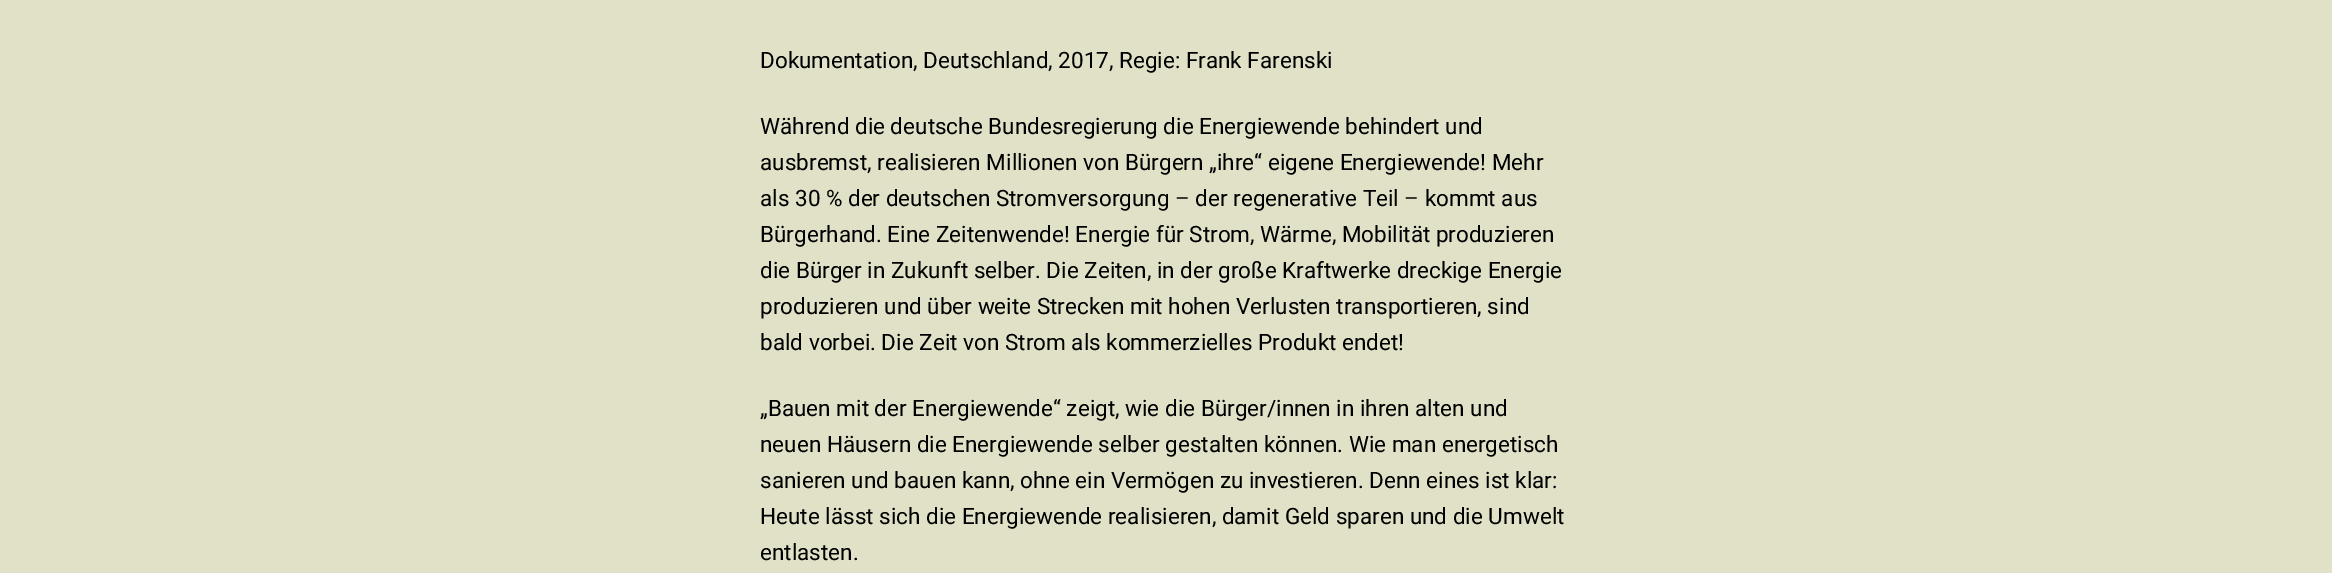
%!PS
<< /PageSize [2332 573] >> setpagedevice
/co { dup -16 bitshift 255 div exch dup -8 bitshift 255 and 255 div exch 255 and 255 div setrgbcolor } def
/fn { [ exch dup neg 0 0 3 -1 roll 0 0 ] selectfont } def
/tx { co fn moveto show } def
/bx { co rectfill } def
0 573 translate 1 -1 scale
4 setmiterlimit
0 0 2332 573 16#E1E1C7 bx
(Dokumentation, Deutschland, 2017, Regie: Frank Farenski) 760 68 /Roboto-Regular 22.5 16#000000 tx
(Während die deutsche Bundesregierung die Energiewende behindert und) 760 134 /Roboto-Regular 22.5 16#000000 tx
(ausbremst, realisieren Millionen von Bürgern „ihre“ eigene Energiewende! Mehr) 760 170 /Roboto-Regular 22.5 16#000000 tx
(als 30 % der deutschen Stromversorgung – der regenerative Teil – kommt aus) 760 206 /Roboto-Regular 22.5 16#000000 tx
(Bürgerhand. Eine Zeitenwende! Energie für Strom, Wärme, Mobilität produzieren) 760 242 /Roboto-Regular 22.5 16#000000 tx
(die Bürger in Zukunft selber. Die Zeiten, in der große Kraftwerke dreckige Energie) 760 278 /Roboto-Regular 22.5 16#000000 tx
(produzieren und über weite Strecken mit hohen Verlusten transportieren, sind) 760 314 /Roboto-Regular 22.5 16#000000 tx
(bald vorbei. Die Zeit von Strom als kommerzielles Produkt endet!) 760 350 /Roboto-Regular 22.5 16#000000 tx
(„Bauen mit der Energiewende“ zeigt, wie die Bürger/innen in ihren alten und) 760 416 /Roboto-Regular 22.5 16#000000 tx
(neuen Häusern die Energiewende selber gestalten können. Wie man energetisch) 760 452 /Roboto-Regular 22.5 16#000000 tx
(sanieren und bauen kann, ohne ein Vermögen zu investieren. Denn eines ist klar:) 760 488 /Roboto-Regular 22.5 16#000000 tx
(Heute lässt sich die Energiewende realisieren, damit Geld sparen und die Umwelt) 760 524 /Roboto-Regular 22.5 16#000000 tx
(entlasten.) 760 560 /Roboto-Regular 22.5 16#000000 tx
showpage
